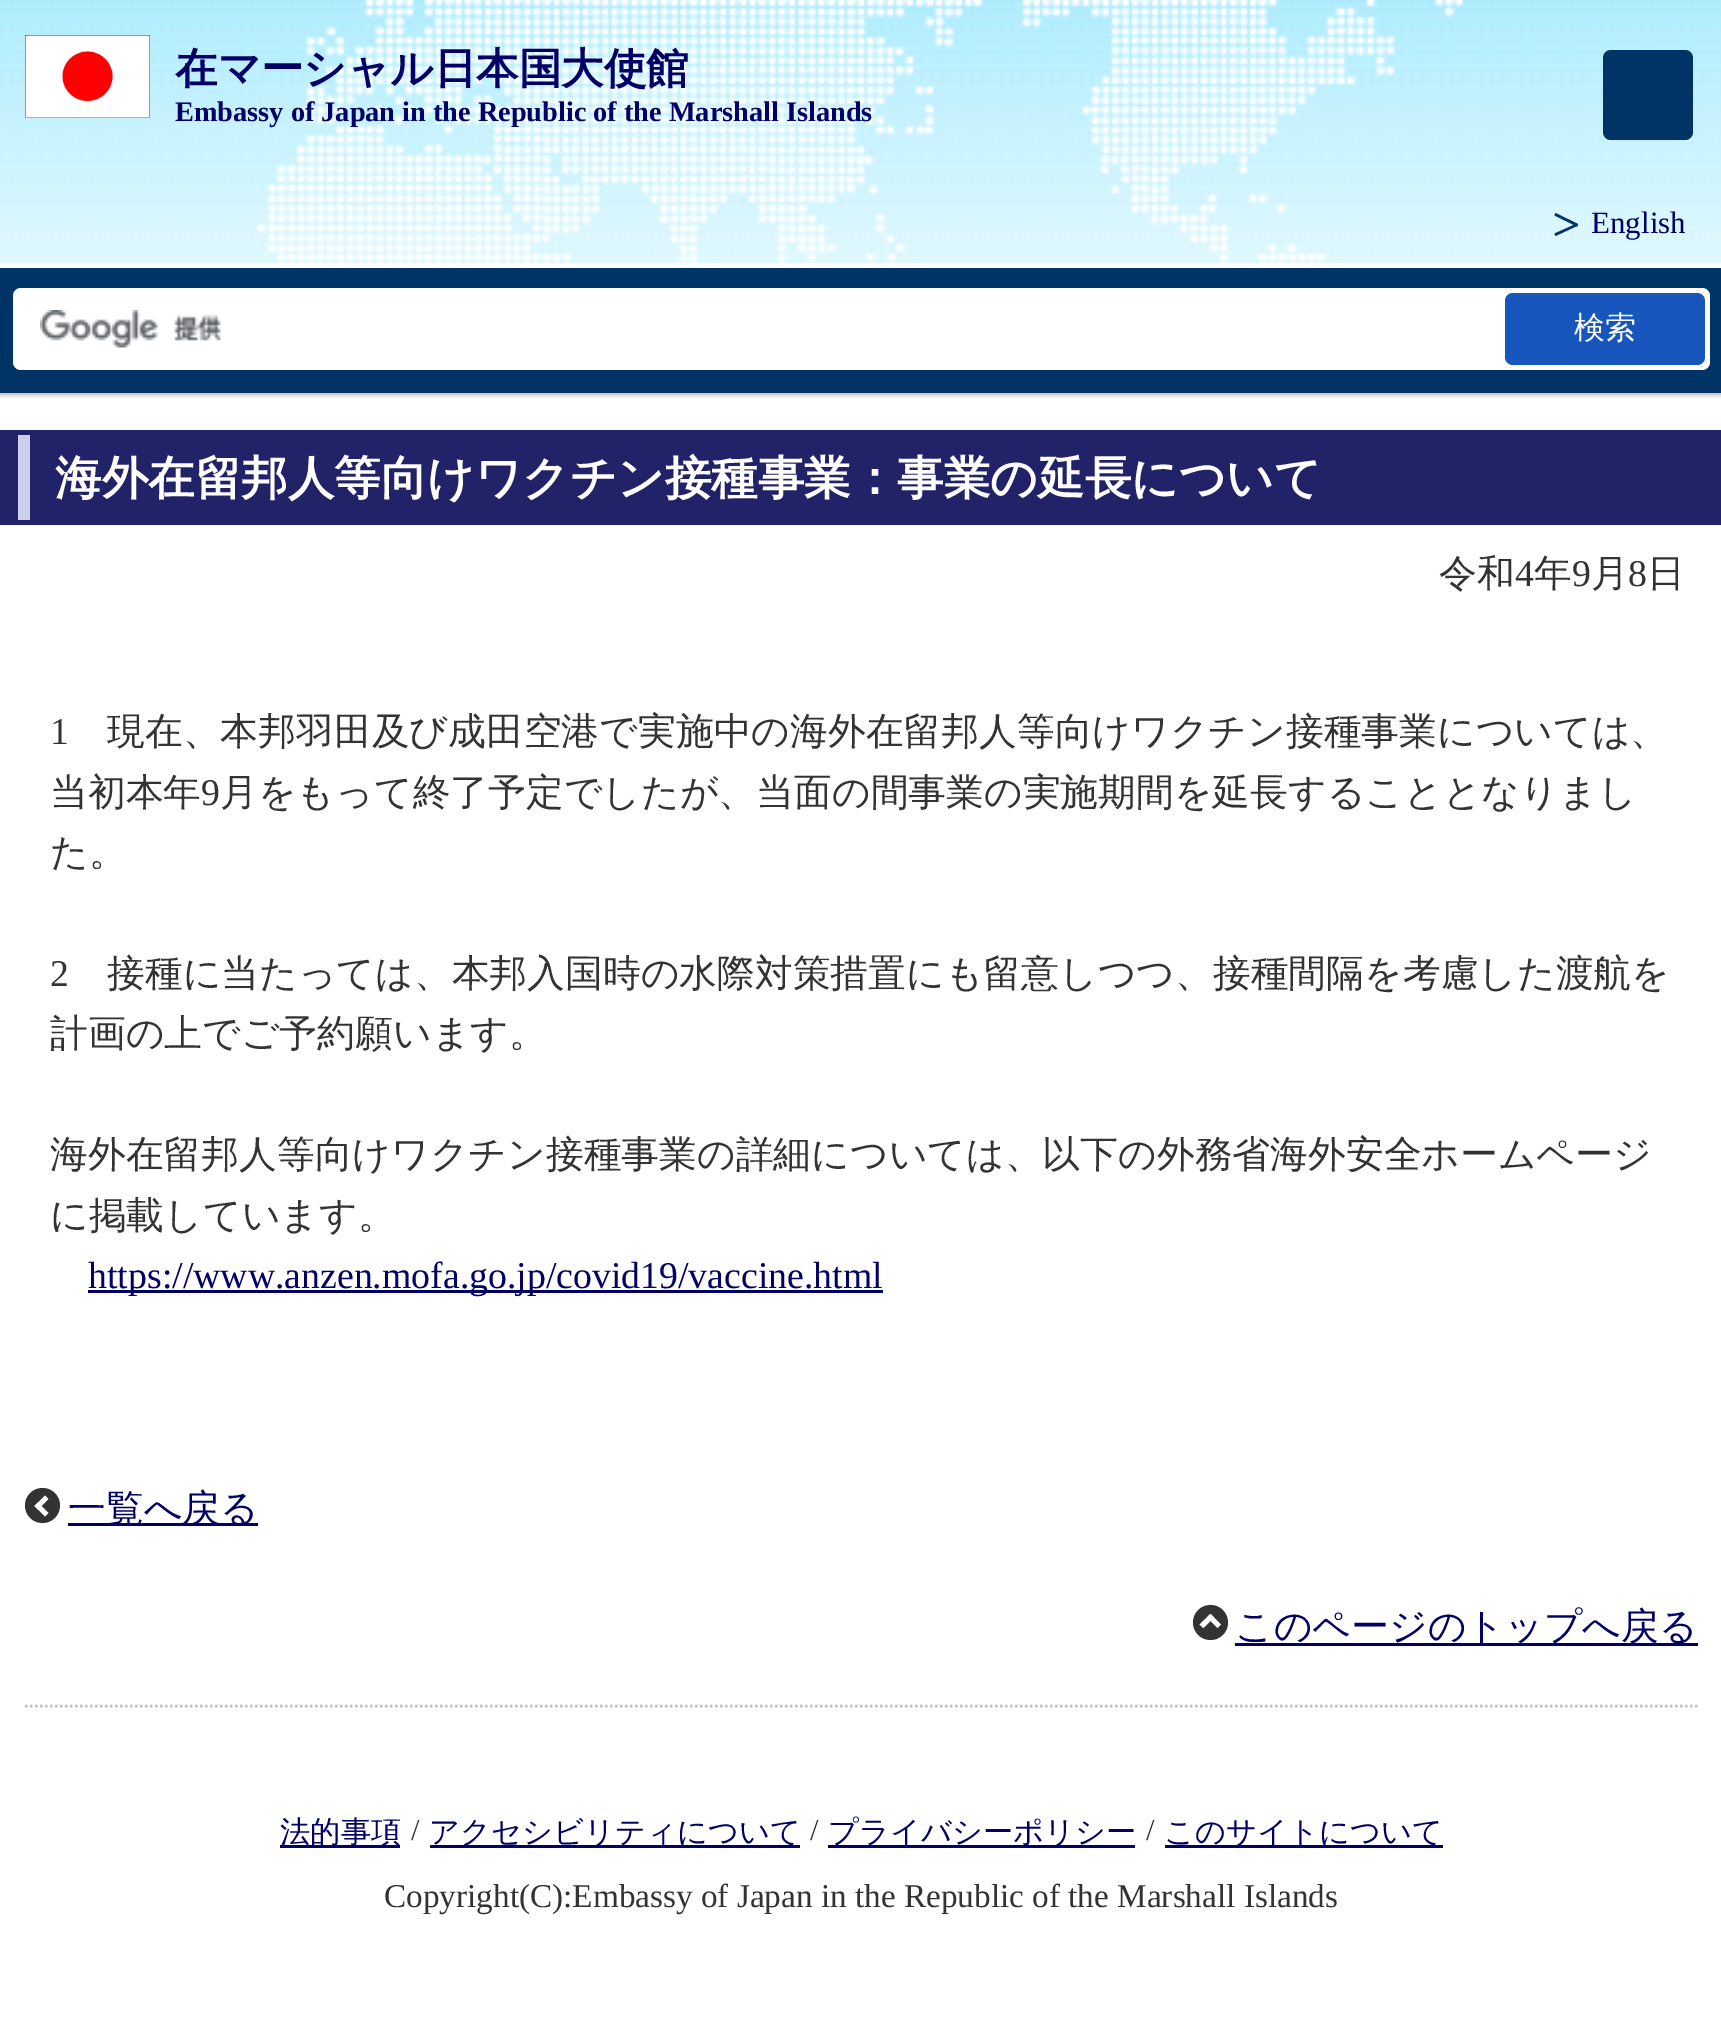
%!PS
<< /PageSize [1721 2042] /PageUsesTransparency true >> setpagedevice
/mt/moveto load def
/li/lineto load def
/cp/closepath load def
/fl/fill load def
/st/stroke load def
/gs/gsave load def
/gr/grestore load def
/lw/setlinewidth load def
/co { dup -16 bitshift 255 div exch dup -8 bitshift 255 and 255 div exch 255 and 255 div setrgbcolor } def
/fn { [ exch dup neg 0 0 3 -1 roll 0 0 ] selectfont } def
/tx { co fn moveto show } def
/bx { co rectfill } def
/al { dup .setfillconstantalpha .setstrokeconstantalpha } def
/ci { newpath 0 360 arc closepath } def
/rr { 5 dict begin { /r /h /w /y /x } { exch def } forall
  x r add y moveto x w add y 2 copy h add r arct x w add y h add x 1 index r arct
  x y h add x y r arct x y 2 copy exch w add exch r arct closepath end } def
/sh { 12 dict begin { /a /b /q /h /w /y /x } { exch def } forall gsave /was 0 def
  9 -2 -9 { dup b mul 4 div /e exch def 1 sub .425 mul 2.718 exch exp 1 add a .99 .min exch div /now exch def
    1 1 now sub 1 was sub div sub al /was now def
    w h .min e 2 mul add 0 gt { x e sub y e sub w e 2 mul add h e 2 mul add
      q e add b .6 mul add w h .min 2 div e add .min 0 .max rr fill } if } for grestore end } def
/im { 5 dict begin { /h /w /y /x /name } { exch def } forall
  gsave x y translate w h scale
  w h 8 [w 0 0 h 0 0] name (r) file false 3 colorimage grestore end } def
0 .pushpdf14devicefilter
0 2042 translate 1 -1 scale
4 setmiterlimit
0 0 1721 2042 16#FFFFFF bx
(media/1.raw) 0 0 1721 263 im
gs
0 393 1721 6 rectclip
16#000000 co
0 3 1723 392 0 2.5 .3 sh
gr
(media/2.raw) 257 0 1206 268 im
(media/3.raw) 25 35 125 83 im
16#003366 co
1603 50 90 90 8 rr fl
16#043465 co
1577 226.5 mt 1554.5 215.5 li 1555.5 213 li 1578 224 li cp fl
1578 225.5 mt 1555.5 236 li 1554.5 233.5 li 1577 223.5 li cp fl
0 268 1721 125 16#003366 bx
16#FFFFFF co
13 288 1697 82 8 rr fl
(media/4.raw) 40 310 183 38 im
16#1756BD co
1505 293 200 72 8 rr fl
0 430 1721 95 16#222268 bx
18 435 12 85 16#CECEEF bx
88 1290 795 3 16#000066 bx
16#333333 co
42.5 1505.5 17.5 ci fl
68 1523 190 3 16#000066 bx
16#FFFFFF co
48.5 1513 mt 45 1516.5 li 34.5 1506 li 38 1502.5 li cp fl
48.5 1499 mt 38 1509.5 li 34.5 1506 li 45 1495.5 li cp fl
16#333333 co
1210.5 1622.5 17.5 ci fl
1235 1643 463 3 16#000066 bx
16#FFFFFF co
1203.5 1628 mt 1199.5 1624.5 li 1210.5 1614 li 1214 1617.5 li cp fl
1217.5 1628 mt 1207 1617.5 li 1210.5 1614 li 1221 1624.5 li cp fl
16#BFBFBF co
2.5 lw
[2.5 2.5] 0 setdash
25 1706 mt 1697.5 1706 li st
280 1845 120 3 16#000066 bx
430 1845 370 3 16#000066 bx
828 1845 307 3 16#000066 bx
1165 1845 278 3 16#000066 bx
(在マーシャル日本国大使館) 175 83 /WenQuanYiZenHei-Bold 42.5 16#000066 tx
(Embassy of Japan in the Republic of the Marshall Islands) 175 121 /LiberationSerif-Bold 28.3 16#000066 tx
(English) 1591 233 /LiberationSerif-Regular 31 16#000066 tx
(検索) 1574 338 /WenQuanYiZenHei-Medium 31 16#FFFFFF tx
(海外在留邦人等向けワクチン接種事業：事業の延長について) 55 494 /WenQuanYiZenHei-Bold 46.5 16#FFFFFF tx
(令和) 1439 586 /WenQuanYiZenHei-Medium 37.8 16#333333 tx
(4) 1515 586 /LiberationSerif-Regular 37.8 16#333333 tx
(年) 1534 586 /WenQuanYiZenHei-Medium 37.8 16#333333 tx
(9) 1572 586 /LiberationSerif-Regular 37.8 16#333333 tx
(月) 1591 586 /WenQuanYiZenHei-Medium 37.8 16#333333 tx
(8) 1628 586 /LiberationSerif-Regular 37.8 16#333333 tx
(日) 1647 586 /WenQuanYiZenHei-Medium 37.8 16#333333 tx
(1) 50 744 /LiberationSerif-Regular 37.8 16#333333 tx
(現在、本邦羽田及び成田空港で実施中の海外在留邦人等向けワクチン接種事業については、) 107 744 /WenQuanYiZenHei-Medium 37.8 16#333333 tx
(当初本年) 50 805 /WenQuanYiZenHei-Medium 37.8 16#333333 tx
(9) 201 805 /LiberationSerif-Regular 37.8 16#333333 tx
(月をもって終了予定でしたが、当面の間事業の実施期間を延長することとなりまし) 220 805 /WenQuanYiZenHei-Medium 37.8 16#333333 tx
(た。) 50 865 /WenQuanYiZenHei-Medium 37.8 16#333333 tx
(2) 50 986 /LiberationSerif-Regular 37.8 16#333333 tx
(接種に当たっては、本邦入国時の水際対策措置にも留意しつつ、接種間隔を考慮した渡航を) 107 986 /WenQuanYiZenHei-Medium 37.8 16#333333 tx
(計画の上でご予約願います。) 50 1046 /WenQuanYiZenHei-Medium 37.8 16#333333 tx
(海外在留邦人等向けワクチン接種事業の詳細については、以下の外務省海外安全ホームページ) 50 1167 /WenQuanYiZenHei-Medium 37.8 16#333333 tx
(に掲載しています。) 50 1228 /WenQuanYiZenHei-Medium 37.8 16#333333 tx
(https://www.anzen.mofa.go.jp/covid19/vaccine.html) 88 1288 /LiberationSerif-Regular 37.8 16#000066 tx
(一覧へ戻る) 68 1521 /WenQuanYiZenHei-Medium 37.8 16#000066 tx
(このページのトップへ戻る) 1235 1639 /WenQuanYiZenHei-Medium 37.8 16#000066 tx
(法的事項) 280 1842 /WenQuanYiZenHei-Medium 30.25 16#000066 tx
(/) 411 1840 /LiberationSerif-Regular 30.25 16#333333 tx
(アクセシビリティについて) 429 1842 /WenQuanYiZenHei-Medium 30.25 16#000066 tx
(/) 810 1840 /LiberationSerif-Regular 30.25 16#333333 tx
(プライバシーポリシー) 828 1842 /WenQuanYiZenHei-Medium 30.25 16#000066 tx
(/) 1146 1840 /LiberationSerif-Regular 30.25 16#333333 tx
(このサイトについて) 1164 1842 /WenQuanYiZenHei-Medium 30.25 16#000066 tx
(Copyright\(C\):Embassy of Japan in the Republic of the Marshall Islands) 384 1907 /LiberationSerif-Regular 33.25 16#333333 tx
.poppdf14devicefilter showpage
